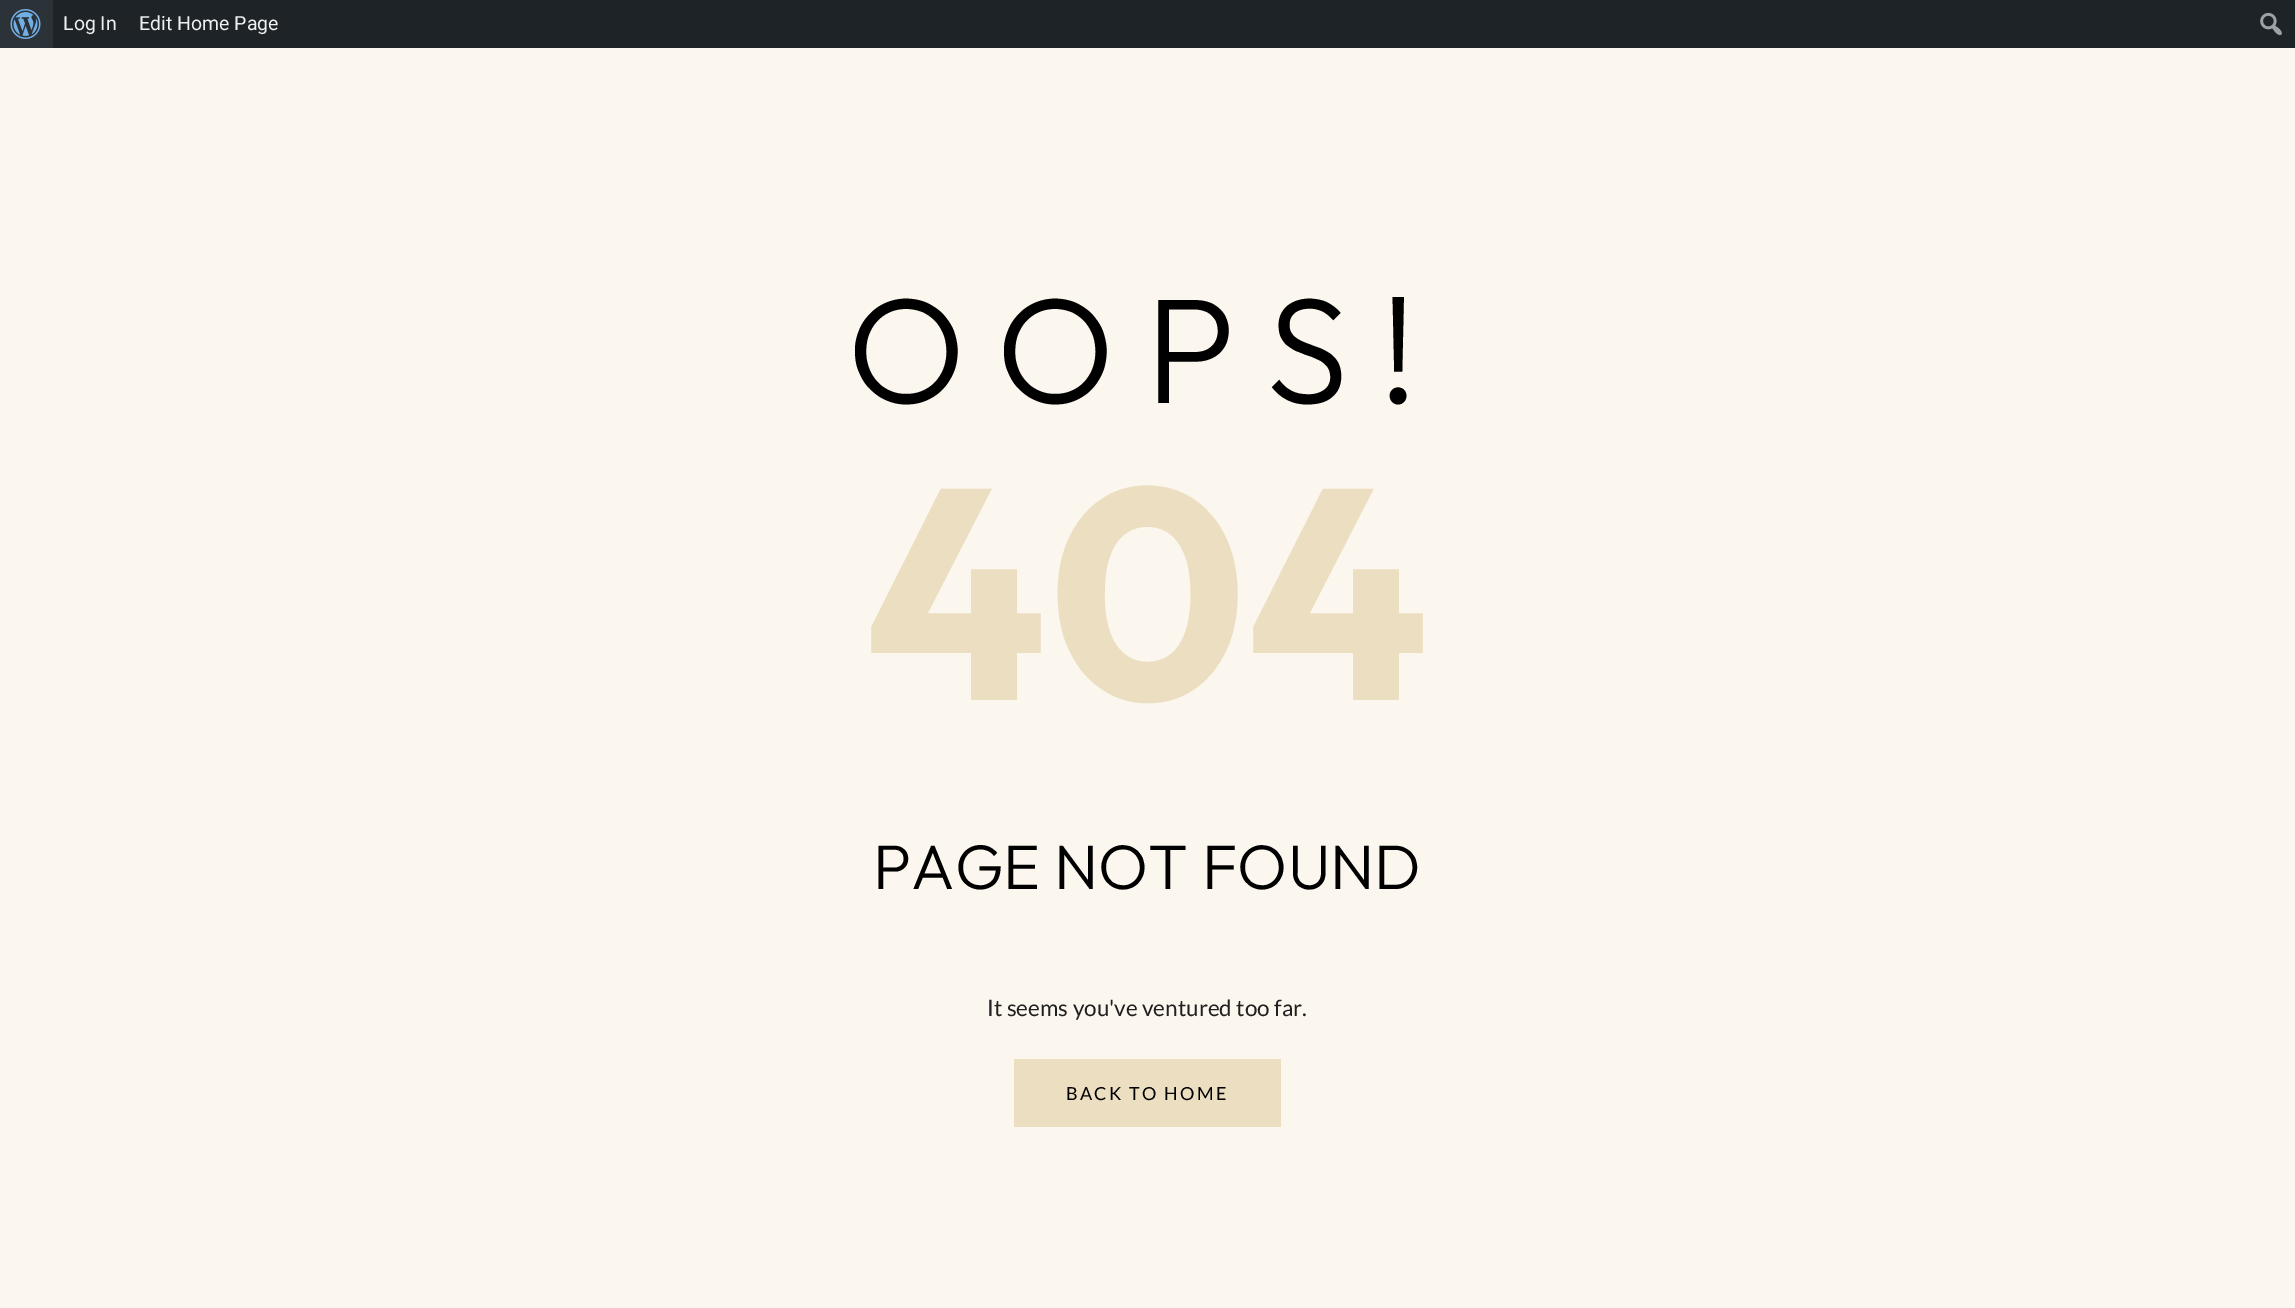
%!PS
<< /PageSize [2295 1308] >> setpagedevice
/mt/moveto load def
/co { dup -16 bitshift 255 div exch dup -8 bitshift 255 and 255 div exch 255 and 255 div setrgbcolor } def
/fn { [ exch dup neg 0 0 3 -1 roll 0 0 ] selectfont } def
/tx { co fn moveto show } def
/bx { co rectfill } def
/im { 5 dict begin { /h /w /y /x /name } { exch def } forall
  gsave x y translate w h scale
  w h 8 [w 0 0 h 0 0] name (r) file false 3 colorimage grestore end } def
0 1308 translate 1 -1 scale
4 setmiterlimit
0 0 2295 1308 16#FCF7EE bx
53 0 2242 48 16#1D2327 bx
0 0 53 48 16#2C3338 bx
(media/1.raw) 10 9 31 30 im
(media/2.raw) 2260 12 22 24 im
1014 1059 267 68 16#ECDEC1 bx
(Log In) 63 30 /Roboto-Regular 19.5 16#F0F0F1 tx
(Edit Home Page) 139 30 /Roboto-Regular 19.5 16#F0F0F1 tx
/Outfit-Light 150 fn
16#000000 co
847 403 mt 30 0 (OOPS!) ashow
(404) 865 700 /Outfit-Bold 300 16#ECDEC1 tx
(PAGE NOT FOUND) 873 889 /Outfit-Light 63 16#000000 tx
(It seems you've ventured too far.) 987 1016 /Lato-Regular 22.5 16#202020 tx
/Lato-Regular 18 fn
16#000000 co
1066 1100 mt 2.25 0 (BACK TO HOME) ashow
showpage
